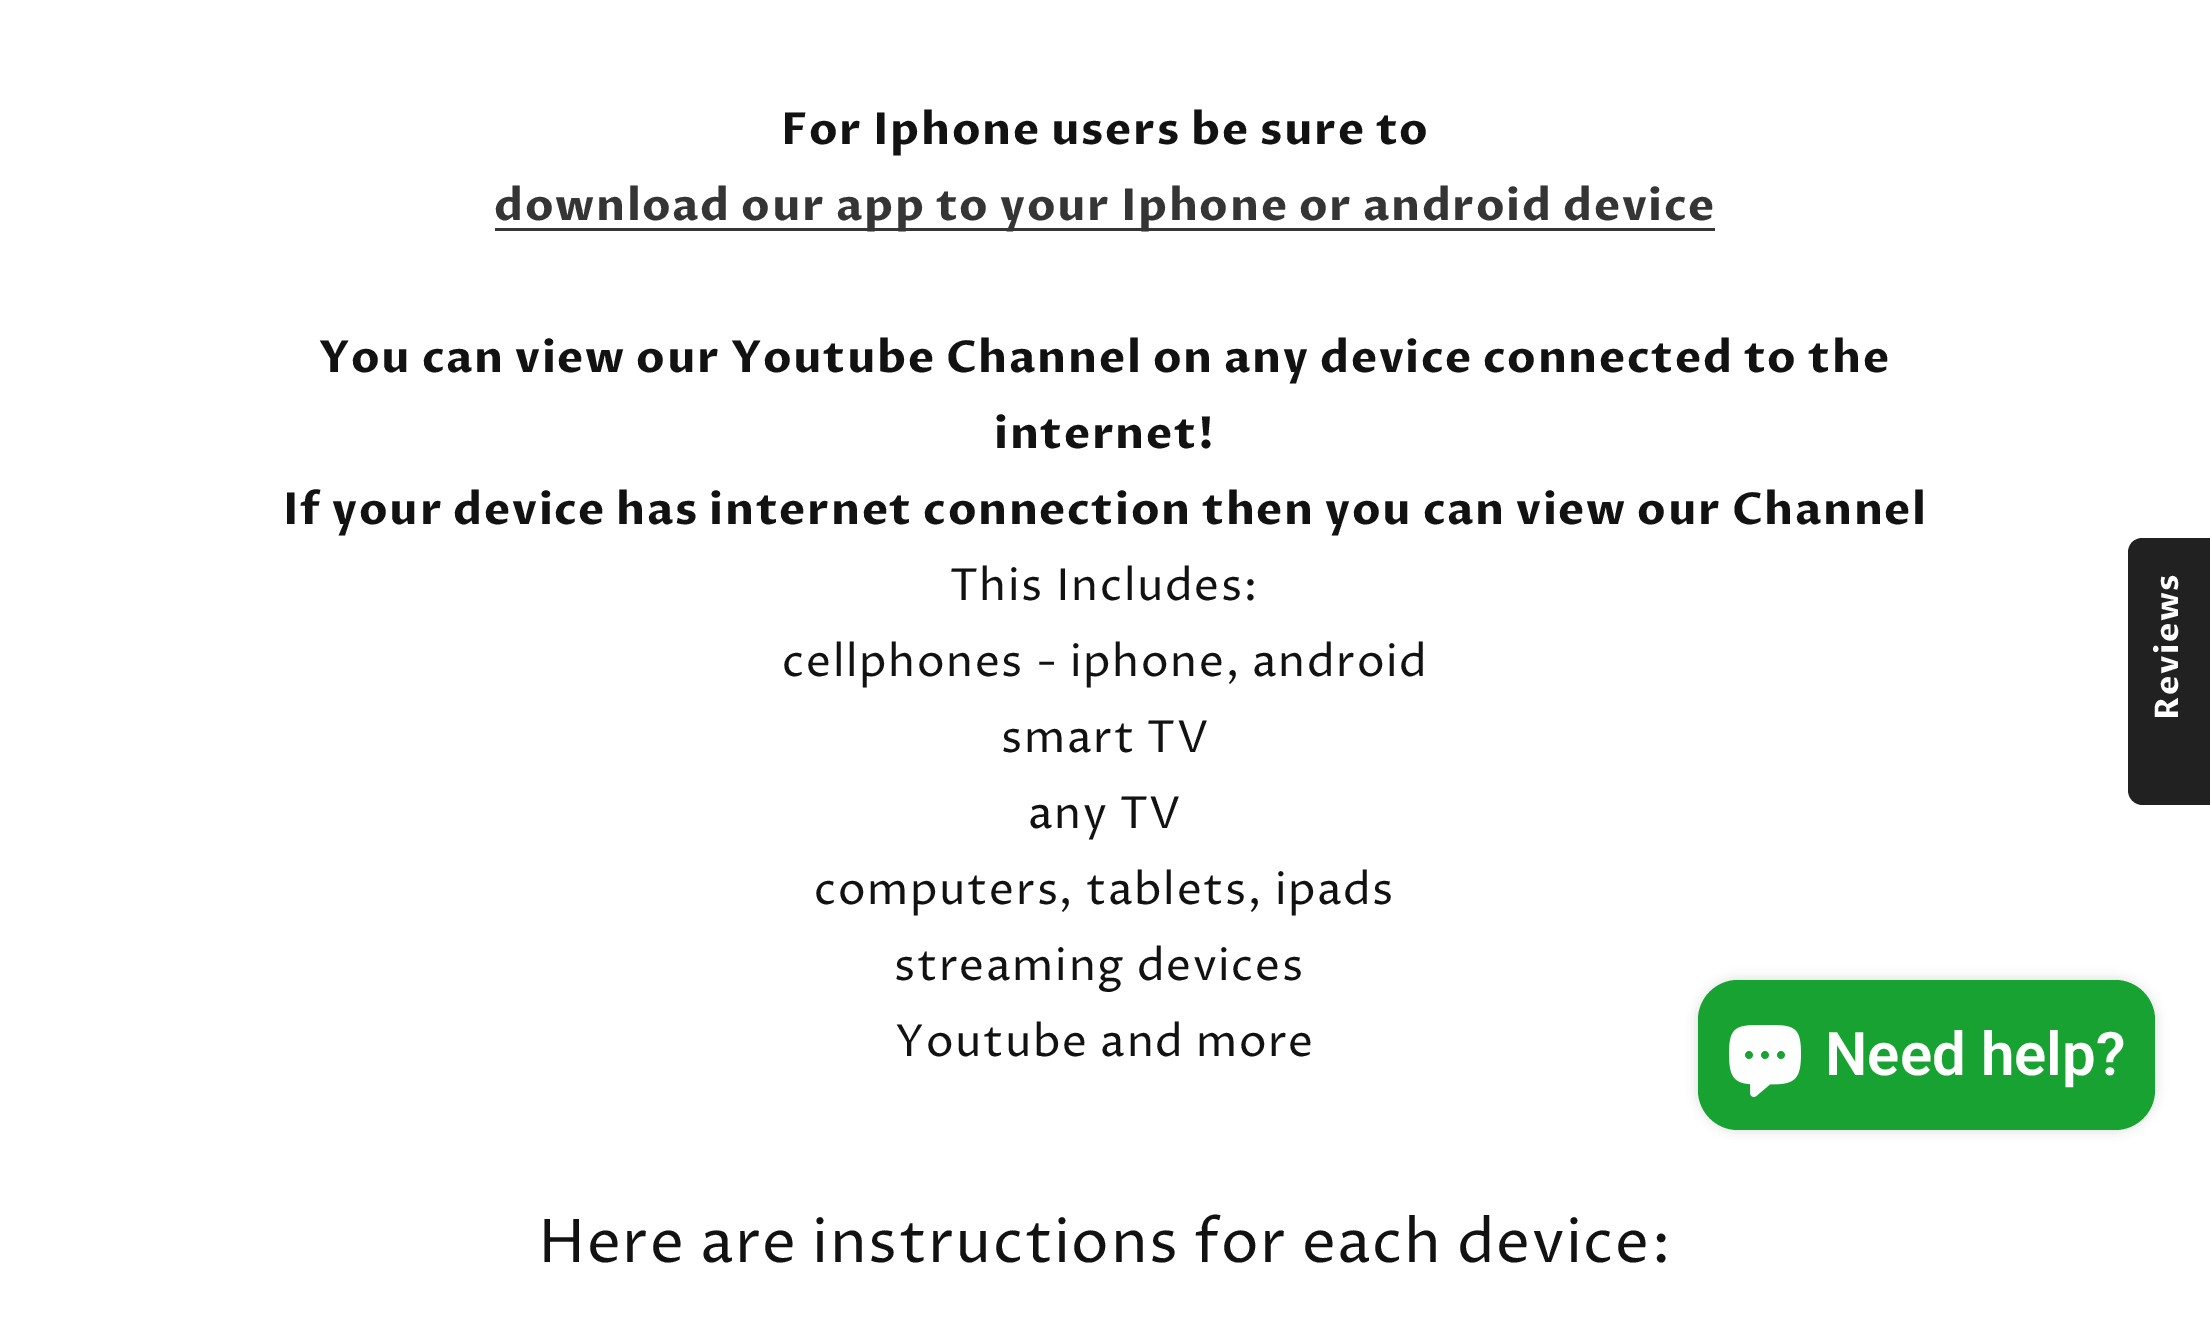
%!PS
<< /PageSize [2210 1341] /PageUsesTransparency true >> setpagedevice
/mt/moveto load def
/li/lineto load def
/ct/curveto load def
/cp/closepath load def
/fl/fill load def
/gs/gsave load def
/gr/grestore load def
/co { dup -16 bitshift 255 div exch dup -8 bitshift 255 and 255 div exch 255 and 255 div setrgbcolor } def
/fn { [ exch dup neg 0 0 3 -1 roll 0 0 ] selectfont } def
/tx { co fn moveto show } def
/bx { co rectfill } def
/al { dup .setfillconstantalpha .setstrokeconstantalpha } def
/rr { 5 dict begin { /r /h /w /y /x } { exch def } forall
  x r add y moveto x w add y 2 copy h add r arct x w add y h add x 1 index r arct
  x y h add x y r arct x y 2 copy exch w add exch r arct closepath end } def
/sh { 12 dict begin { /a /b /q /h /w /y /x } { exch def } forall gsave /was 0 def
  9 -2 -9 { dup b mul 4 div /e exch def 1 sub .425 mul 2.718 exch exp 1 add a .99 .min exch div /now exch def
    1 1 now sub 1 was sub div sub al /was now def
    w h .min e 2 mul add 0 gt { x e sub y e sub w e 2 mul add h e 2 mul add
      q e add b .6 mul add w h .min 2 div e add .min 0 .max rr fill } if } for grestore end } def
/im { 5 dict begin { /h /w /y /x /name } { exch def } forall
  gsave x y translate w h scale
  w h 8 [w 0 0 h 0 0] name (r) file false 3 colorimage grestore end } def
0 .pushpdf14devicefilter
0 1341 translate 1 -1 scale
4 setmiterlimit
0 0 2210 1341 16#FFFFFF bx
495 228 1220 3 16#363636 bx
16#212121 co
2128 790 mt 2128 553 li 2128 544 2134 538 2143 538 ct 2210 538 li 2210 805 li 2143 805 li 2134 805 2128 798 2128 790 ct cp fl
16#000000 co
1698 980 457 150 40 6 .15 sh
16#17A231 co
1698 980 457 150 40 rr fl
(media/1.raw) 1729 1025 72 72 im
/ProzaLibre-Bold 44 fn
16#121212 co
781 144 mt 1.65 0 (For Iphone users be sure to) ashow
16#353535 co
494 220 mt 1.65 0 (download our app to your Iphone or android device) ashow
16#121212 co
319 372 mt 1.65 0 (You can view our Youtube Channel) ashow
1153 372 mt 1.65 0 (on any device connected to the) ashow
994 448 mt 1.65 0 (internet!) ashow
283 524 mt 1.65 0 (If your device has internet connection then you can view our Channel) ashow
/ProzaLibre-Regular 44 fn
950 600 mt 1.65 0 (This Includes:) ashow
782 676 mt 1.65 0 (cellphones - iphone, android) ashow
1001 752 mt 1.65 0 (smart TV) ashow
1028 828 mt 1.65 0 (any TV) ashow
814 904 mt 1.65 0 (computers, tablets, ipads) ashow
894 980 mt 1.65 0 (streaming devices) ashow
895 1056 mt 1.65 0 (Youtube and more) ashow
/ProzaLibre-Regular 60 fn
538 1262 mt 1.5 0 (Here are instructions for each device:) ashow
/ProzaLibre-Bold 32.5 fn
16#FFFFFF co
gs 2178 720 translate -90 rotate 0 0 mt 1.65 0 (Reviews) ashow gr
(Need help?) 1825 1075 /Roboto-SemiBold 60 16#FFFFFF tx
.poppdf14devicefilter showpage
